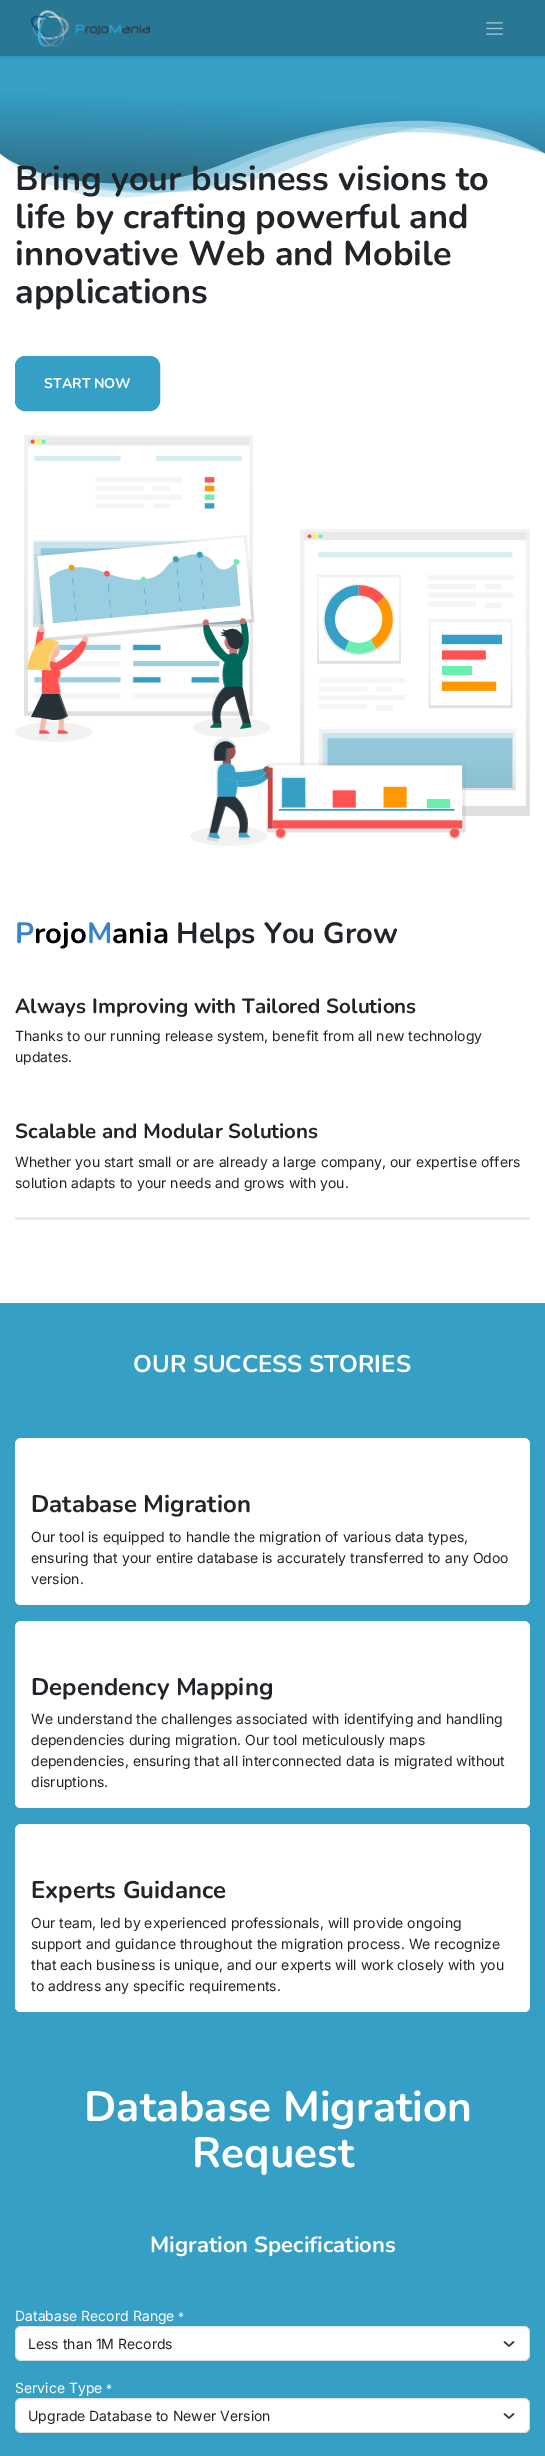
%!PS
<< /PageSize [545 2456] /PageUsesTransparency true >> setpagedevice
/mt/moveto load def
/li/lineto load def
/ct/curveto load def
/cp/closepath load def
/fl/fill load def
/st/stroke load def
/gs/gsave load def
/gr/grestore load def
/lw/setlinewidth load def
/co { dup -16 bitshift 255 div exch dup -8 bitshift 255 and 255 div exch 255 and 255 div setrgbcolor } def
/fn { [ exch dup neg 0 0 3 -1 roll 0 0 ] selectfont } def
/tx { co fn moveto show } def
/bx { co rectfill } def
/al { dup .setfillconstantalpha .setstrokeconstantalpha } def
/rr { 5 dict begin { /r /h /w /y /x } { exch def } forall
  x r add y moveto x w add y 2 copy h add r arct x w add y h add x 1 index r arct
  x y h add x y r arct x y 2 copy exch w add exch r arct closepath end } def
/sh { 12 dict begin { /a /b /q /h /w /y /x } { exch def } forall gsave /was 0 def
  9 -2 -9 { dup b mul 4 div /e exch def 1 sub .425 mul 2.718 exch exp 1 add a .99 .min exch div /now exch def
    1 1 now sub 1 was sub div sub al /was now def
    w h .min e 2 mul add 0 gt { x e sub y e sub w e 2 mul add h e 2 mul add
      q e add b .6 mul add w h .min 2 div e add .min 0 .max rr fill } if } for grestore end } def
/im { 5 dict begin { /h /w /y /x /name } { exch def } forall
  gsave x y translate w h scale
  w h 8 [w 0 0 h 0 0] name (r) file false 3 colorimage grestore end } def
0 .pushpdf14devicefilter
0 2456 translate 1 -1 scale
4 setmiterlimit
0 0 545 2456 16#FFFFFF bx
(media/3.raw) 0 56 545 142 im
16#000000 co
0 1 545 56 0 1.5 .1 sh
0 0 545 56 16#287795 bx
(media/1.raw) 31 10 119 37 im
(media/2.raw) 486 22 17 13 im
16#359FC6 co
15.5 356.5 144 54 9.5 rr gs fl gr
st
(media/4.raw) 15 435 515 411 im
15 1217 515 3 16#E9ECEF bx
0 1303 545 1153 16#359FC6 bx
16#FFFFFF co
15 1438 515 167 6 rr fl
0.9 al
15 1475 mt 530 1475 li 530 1599 li 530 1602.5 527.5 1605 524 1605 ct 21 1605 li 17.5 1605 15 1602.5 15 1599 ct cp fl
1 al
15 1621 515 187 6 rr fl
0.9 al
15 1658 mt 530 1658 li 530 1802 li 530 1805.5 527.5 1808 524 1808 ct 21 1808 li 17.5 1808 15 1805.5 15 1802 ct cp fl
1 al
15 1824 515 188 6 rr fl
0.9 al
15 1861 mt 530 1861 li 530 2006 li 530 2009.5 527.5 2012 524 2012 ct 21 2012 li 17.5 2012 15 2009.5 15 2006 ct cp fl
1 al
15 2326 515 35 6 rr fl
16#343A40 co
1.5 lw
1 setlinecap
1 setlinejoin
504.5 2342 mt 509 2346 li 513.5 2342 li st
0.15 al
16#212529 co
1 lw
0 setlinecap
0 setlinejoin
15.5 2326.5 514 34 5.5 rr st
1 al
16#FFFFFF co
15 2398 515 35 6 rr fl
16#343A40 co
1.5 lw
1 setlinecap
1 setlinejoin
504.5 2414 mt 509 2418 li 513.5 2414 li st
0.15 al
16#212529 co
1 lw
0 setlinecap
0 setlinejoin
15.5 2398.5 514 34 5.5 rr st
1 al
(Bring your business visions to) 15 190 /Nunito-Bold 34.25 16#212529 tx
(life by crafting powerful and) 15 228 /Nunito-Bold 34.25 16#212529 tx
(innovative Web and Mobile) 15 265 /Nunito-Bold 34.25 16#212529 tx
(applications) 15 303 /Nunito-Bold 34.25 16#212529 tx
(START NOW) 44 388 /Nunito-Bold 14 16#FFFFFF tx
(P) 15 943 /Nunito-Bold 29.25 16#3984C6 tx
(rojo) 34 943 /Nunito-Bold 29.25 16#000000 tx
(M) 87 943 /Nunito-Bold 29.25 16#3984C6 tx
(ania) 112 943 /Nunito-Bold 29.25 16#000000 tx
(Helps You Grow) 176 943 /Nunito-Bold 29.25 16#212529 tx
(Always Improving with Tailored Solutions) 15 1013 /Nunito-Bold 20.5 16#212529 tx
(Thanks to our running release system, benefit from all new technology) 15 1041 /Inter-Regular 14 16#212529 tx
(updates.) 15 1062 /Inter-Regular 14 16#212529 tx
(Scalable and Modular Solutions) 15 1138 /Nunito-Bold 20.5 16#212529 tx
(Whether you start small or are already a large company, our expertise offers) 15 1167 /Inter-Regular 14 16#212529 tx
(solution adapts to your needs and grows with you.) 15 1188 /Inter-Regular 14 16#212529 tx
(OUR SUCCESS STORIES) 133 1372 /Nunito-Bold 24 16#FFFFFF tx
(Database Migration) 31 1512 /Nunito-Bold 24 16#212529 tx
(Our tool is equipped to handle the migration of various data types,) 31 1542 /Inter-Regular 14 16#212529 tx
(ensuring that your entire database is accurately transferred to any Odoo) 31 1563 /Inter-Regular 14 16#212529 tx
(version.) 31 1584 /Inter-Regular 14 16#212529 tx
(Dependency Mapping) 31 1695 /Nunito-Bold 24 16#212529 tx
(We understand the challenges associated with identifying and handling) 31 1724 /Inter-Regular 14 16#212529 tx
(dependencies during migration. Our tool meticulously maps) 31 1745 /Inter-Regular 14 16#212529 tx
(dependencies, ensuring that all interconnected data is migrated without) 31 1766 /Inter-Regular 14 16#212529 tx
(disruptions.) 31 1787 /Inter-Regular 14 16#212529 tx
(Experts Guidance) 31 1898 /Nunito-Bold 24 16#212529 tx
(Our team, led by experienced professionals, will provide ongoing) 31 1928 /Inter-Regular 14 16#212529 tx
(support and guidance throughout the migration process. We recognize) 31 1949 /Inter-Regular 14 16#212529 tx
(that each business is unique, and our experts will work closely with you) 31 1970 /Inter-Regular 14 16#212529 tx
(to address any specific requirements.) 31 1991 /Inter-Regular 14 16#212529 tx
(Database Migration) 84 2121 /Nunito-Bold 42.4 16#FFFFFF tx
(Request) 192 2167 /Nunito-Bold 42.4 16#FFFFFF tx
(Migration Specifications) 150 2252 /Nunito-Bold 22 16#FFFFFF tx
(Database Record Range) 15 2321 /Inter-Regular 14 16#FFFFFF tx
(*) 178 2321 /Inter-Regular 12 16#FFFFFF tx
(Less than 1M Records) 28 2349 /Inter-Regular 14 16#212529 tx
(Service Type) 15 2393 /Inter-Regular 14 16#FFFFFF tx
(*) 106 2393 /Inter-Regular 12 16#FFFFFF tx
(Upgrade Database to Newer Version) 28 2421 /Inter-Regular 14 16#212529 tx
.poppdf14devicefilter showpage
